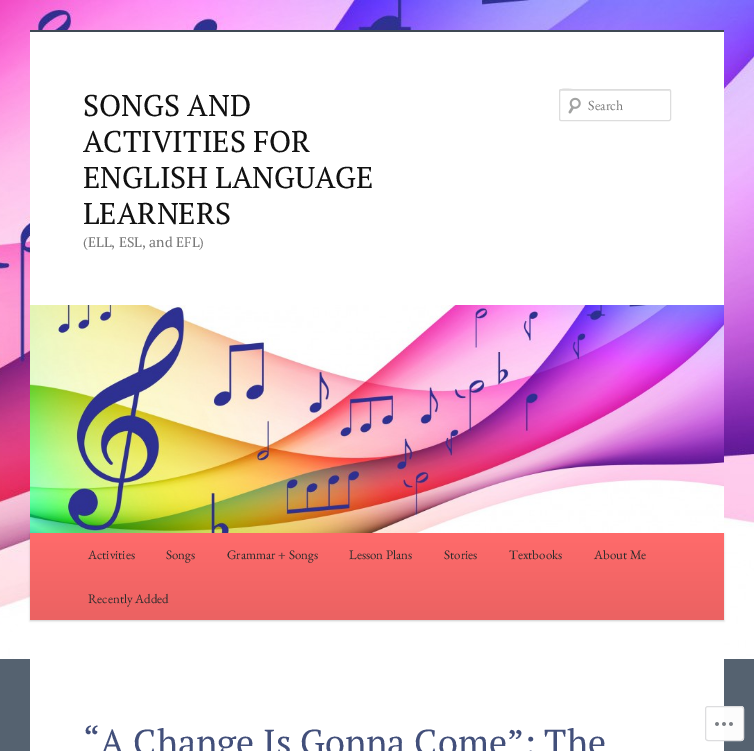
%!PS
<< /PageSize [754 751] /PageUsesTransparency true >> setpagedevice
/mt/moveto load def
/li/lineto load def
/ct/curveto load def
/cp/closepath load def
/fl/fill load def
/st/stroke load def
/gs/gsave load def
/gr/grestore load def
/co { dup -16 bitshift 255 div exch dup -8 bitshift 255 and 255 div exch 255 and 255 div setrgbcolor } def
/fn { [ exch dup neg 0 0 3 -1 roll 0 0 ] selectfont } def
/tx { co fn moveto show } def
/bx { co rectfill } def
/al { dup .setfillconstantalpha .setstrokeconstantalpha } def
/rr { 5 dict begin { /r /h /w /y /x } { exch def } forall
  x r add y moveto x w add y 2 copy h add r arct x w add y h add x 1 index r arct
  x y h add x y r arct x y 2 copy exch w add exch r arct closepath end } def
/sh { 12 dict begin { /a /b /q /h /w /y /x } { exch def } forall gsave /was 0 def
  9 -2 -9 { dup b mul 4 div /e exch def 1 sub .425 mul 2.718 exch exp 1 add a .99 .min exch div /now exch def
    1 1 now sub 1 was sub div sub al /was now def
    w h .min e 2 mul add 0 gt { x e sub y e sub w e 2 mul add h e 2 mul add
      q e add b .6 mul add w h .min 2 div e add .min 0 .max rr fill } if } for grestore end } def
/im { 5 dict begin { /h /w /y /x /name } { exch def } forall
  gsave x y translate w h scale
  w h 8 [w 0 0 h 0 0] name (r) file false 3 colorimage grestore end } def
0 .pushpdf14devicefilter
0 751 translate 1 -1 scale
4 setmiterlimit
0 0 754 751 16#556270 bx
(media/1.raw) 0 0 754 659 im
30 32 694 719 16#FFFFFF bx
30 30 694 2 16#3F4954 bx
(media/2.raw) 568 97 13 17 im
16#E6E6E6 co
561 91 mt 670 91 li 670 92 li 669 90 li 579 90 li 575 90 560 85 560 92 ct 560 91 560 91 561 91 ct cp fl
16#DDDDDD co
559.5 89.5 111 31 1.5 rr st
16#000000 co
30 534 694 87 0 1 .2 sh
(media/3.raw) 30 305 694 228 im
gs 30 533 mt 724 533 li 724 620 li 30 620 li cp clip newpath
<< /ShadingType 2 /ColorSpace /DeviceRGB /Coords [377 533 377 620] /Extend [true true] /Function << /FunctionType 2 /Domain [0 1] /C0 [1 .42 .42] /C1 [.922 .384 .384] /N 1 >> >> shfill gr
0.98 al
16#FFFFFF co
705 706 39 35 3 rr fl
16#DCDCDE co
705.5 706.5 38 34 2.5 rr st
1 al
(media/4.raw) 715 722 18 4 im
(SONGS AND) 83 116 /PTSerif-Regular 30 16#111111 tx
(ACTIVITIES FOR) 83 152 /PTSerif-Regular 30 16#111111 tx
(ENGLISH LANGUAGE) 83 188 /PTSerif-Regular 30 16#111111 tx
(LEARNERS) 83 224 /PTSerif-Regular 30 16#111111 tx
(\(ELL, ESL, and EFL\)) 83 247 /PTSerif-Regular 14 16#7A7A7A tx
(Search) 588 110 /EBGaramond-Regular 14 16#7A7A7A tx
(Activities) 88 559 /EBGaramond-Regular 13 16#2B2B2B tx
(Songs) 166 559 /EBGaramond-Regular 13 16#2B2B2B tx
(Grammar + Songs) 227 559 /EBGaramond-Regular 13 16#2B2B2B tx
(Lesson Plans) 349 559 /EBGaramond-Regular 13 16#2B2B2B tx
(Stories) 444 559 /EBGaramond-Regular 13 16#2B2B2B tx
(Textbooks) 509 559 /EBGaramond-Regular 13 16#2B2B2B tx
(About Me) 594 559 /EBGaramond-Regular 13 16#2B2B2B tx
(Recently Added) 88 603 /EBGaramond-Regular 13 16#2B2B2B tx
(“A Change Is Gonna Come”: The) 83 755 /PTSerif-Regular 36 16#424F7A tx
.poppdf14devicefilter showpage
